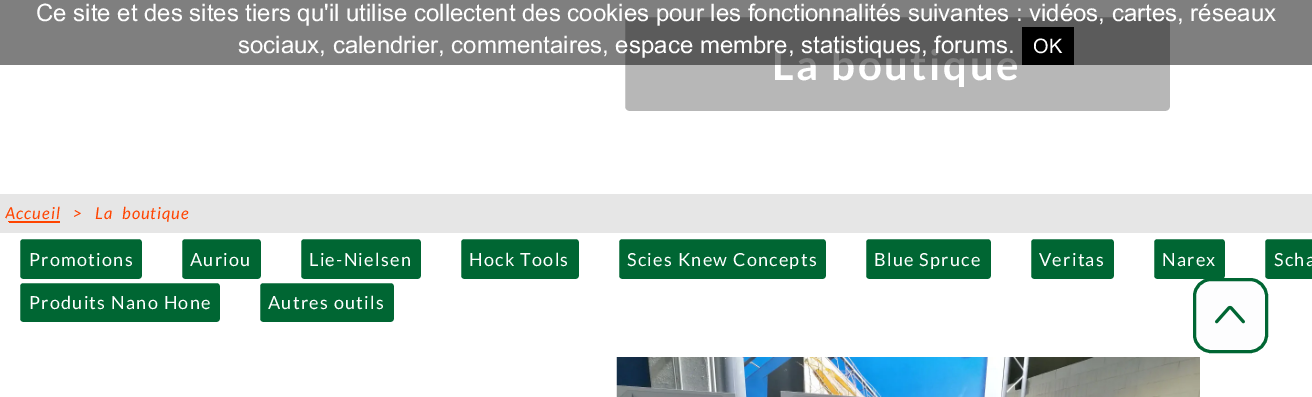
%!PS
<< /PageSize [1312 397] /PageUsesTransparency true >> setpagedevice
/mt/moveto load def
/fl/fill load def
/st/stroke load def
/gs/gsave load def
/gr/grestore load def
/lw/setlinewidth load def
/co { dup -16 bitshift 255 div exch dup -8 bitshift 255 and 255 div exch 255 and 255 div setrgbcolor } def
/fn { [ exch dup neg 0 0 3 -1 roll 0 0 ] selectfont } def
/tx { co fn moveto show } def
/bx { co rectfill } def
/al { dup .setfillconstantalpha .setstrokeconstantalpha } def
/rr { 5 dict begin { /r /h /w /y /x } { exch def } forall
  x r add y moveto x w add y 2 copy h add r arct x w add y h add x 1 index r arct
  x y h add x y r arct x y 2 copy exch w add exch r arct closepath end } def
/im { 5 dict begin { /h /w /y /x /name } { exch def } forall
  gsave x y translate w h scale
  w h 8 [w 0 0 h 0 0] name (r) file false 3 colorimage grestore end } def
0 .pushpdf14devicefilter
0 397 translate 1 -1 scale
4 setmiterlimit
0 0 1312 397 16#FFFFFF bx
16#B7B7B7 co
621 13 553 102 8 rr gs fl gr
16#FFFFFF co
8 lw
st
0 194 1312 39 16#E6E6E6 bx
gs
5 203 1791 21 10.5 rr clip newpath
5 221 55 2 16#FF4400 bx
gr
16#006633 co
19 238 124 42 4 rr gs fl gr
16#FFFFFF co
2 lw
st
16#006633 co
181 238 81 42 4 rr gs fl gr
16#FFFFFF co
st
16#006633 co
300 238 122 42 4 rr gs fl gr
16#FFFFFF co
st
16#006633 co
460 238 120 42 4 rr gs fl gr
16#FFFFFF co
st
16#006633 co
618 238 209 42 4 rr gs fl gr
16#FFFFFF co
st
16#006633 co
865 238 127 42 4 rr gs fl gr
16#FFFFFF co
st
16#006633 co
1030 238 85 42 4 rr gs fl gr
16#FFFFFF co
st
16#006633 co
1153 238 73 42 4 rr gs fl gr
16#FFFFFF co
st
16#006633 co
1264 238 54 42 4 rr gs fl gr
16#FFFFFF co
st
16#006633 co
19 282 202 41 4 rr gs fl gr
16#FFFFFF co
st
16#006633 co
259 282 136 41 4 rr gs fl gr
16#FFFFFF co
st
(media/1.raw) 616 357 584 40 im
0.53 al
16#FCFCFD co
1194.5 279.5 72 72 16.5 rr fl
1 al
16#006633 co
3 lw
1194.5 279.5 72 72 16.5 rr st
(media/2.raw) 1215 305 30 19 im
/Lato-Bold 42 fn
16#FFFFFF co
772 80 mt 2.5 0 (La boutique) ashow
0.5 al
0 0 1312 65 16#000000 bx
1 al
1022 27 52 38 16#000000 bx
(OK) 1033 53 /Arial-Regular 20 16#FFFFFF tx
(sociaux, calendrier, commentaires, espace membre, statistiques, forums.) 238 53 /Arial-Regular 24 16#FFFFFF tx
(Ce site et des sites tiers qu'il utilise collectent des cookies pour les fonctionnalités suivantes : vidéos, cartes, réseaux) 36 21 /Arial-Regular 24 16#FFFFFF tx
gs
5 203 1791 21 10.5 rr clip newpath
/Lato-Italic 16.5 fn
16#FF4400 co
5 219 mt 1 0 (Accueil) ashow
gr
/Lato-Italic 16.5 fn
16#FF4400 co
73 219 mt 1 0 (>   La  boutique) ashow
/Lato-Regular 18 fn
16#FFFFFF co
29 266 mt 1.25 0 (Promotions) ashow
190 266 mt 1.25 0 (Auriou) ashow
309 266 mt 1.25 0 (Lie-Nielsen) ashow
469 266 mt 1.25 0 (Hock Tools) ashow
627 266 mt 1.25 0 (Scies Knew Concepts) ashow
874 266 mt 1.25 0 (Blue Spruce) ashow
1039 266 mt 1.25 0 (Veritas) ashow
1162 266 mt 1.25 0 (Narex) ashow
1274 266 mt 1.25 0 (Scha) ashow
29 309 mt 1.25 0 (Produits Nano Hone) ashow
268 309 mt 1.25 0 (Autres outils) ashow
.poppdf14devicefilter showpage
